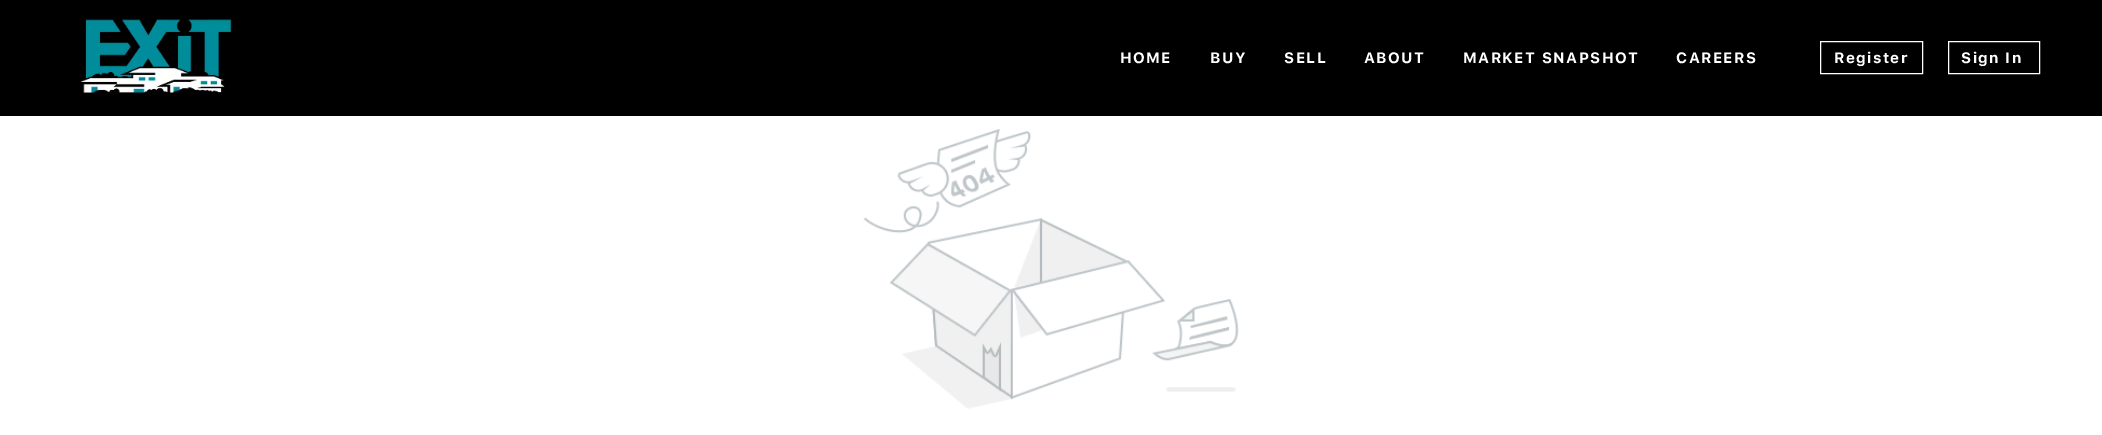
%!PS
<< /PageSize [2102 435] >> setpagedevice
/mt/moveto load def
/co { dup -16 bitshift 255 div exch dup -8 bitshift 255 and 255 div exch 255 and 255 div setrgbcolor } def
/fn { [ exch dup neg 0 0 3 -1 roll 0 0 ] selectfont } def
/bx { co rectfill } def
/im { 5 dict begin { /h /w /y /x /name } { exch def } forall
  gsave x y translate w h scale
  w h 8 [w 0 0 h 0 0] name (r) file false 3 colorimage grestore end } def
0 435 translate 1 -1 scale
4 setmiterlimit
0 0 2102 435 16#FFFFFF bx
0 0 2102 116 16#000000 bx
(media/1.raw) 80 19 152 76 im
16#FFFFFF co
1820.5 41.5 102 32 rectstroke
1948.5 41.5 91 32 rectstroke
(media/2.raw) 863 129 376 280 im
/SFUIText-Bold 15 fn
1120 63 mt 1.4 0 (HOME) ashow
1210 63 mt 1.4 0 (BUY) ashow
1284 63 mt 1.4 0 (SELL) ashow
1364 63 mt 1.4 0 (ABOUT) ashow
1463 63 mt 1.4 0 (MARKET SNAPSHOT) ashow
1676 63 mt 1.4 0 (CAREERS) ashow
1834 63 mt 1.4 0 (Register) ashow
1961 63 mt 1.4 0 (Sign In) ashow
showpage
